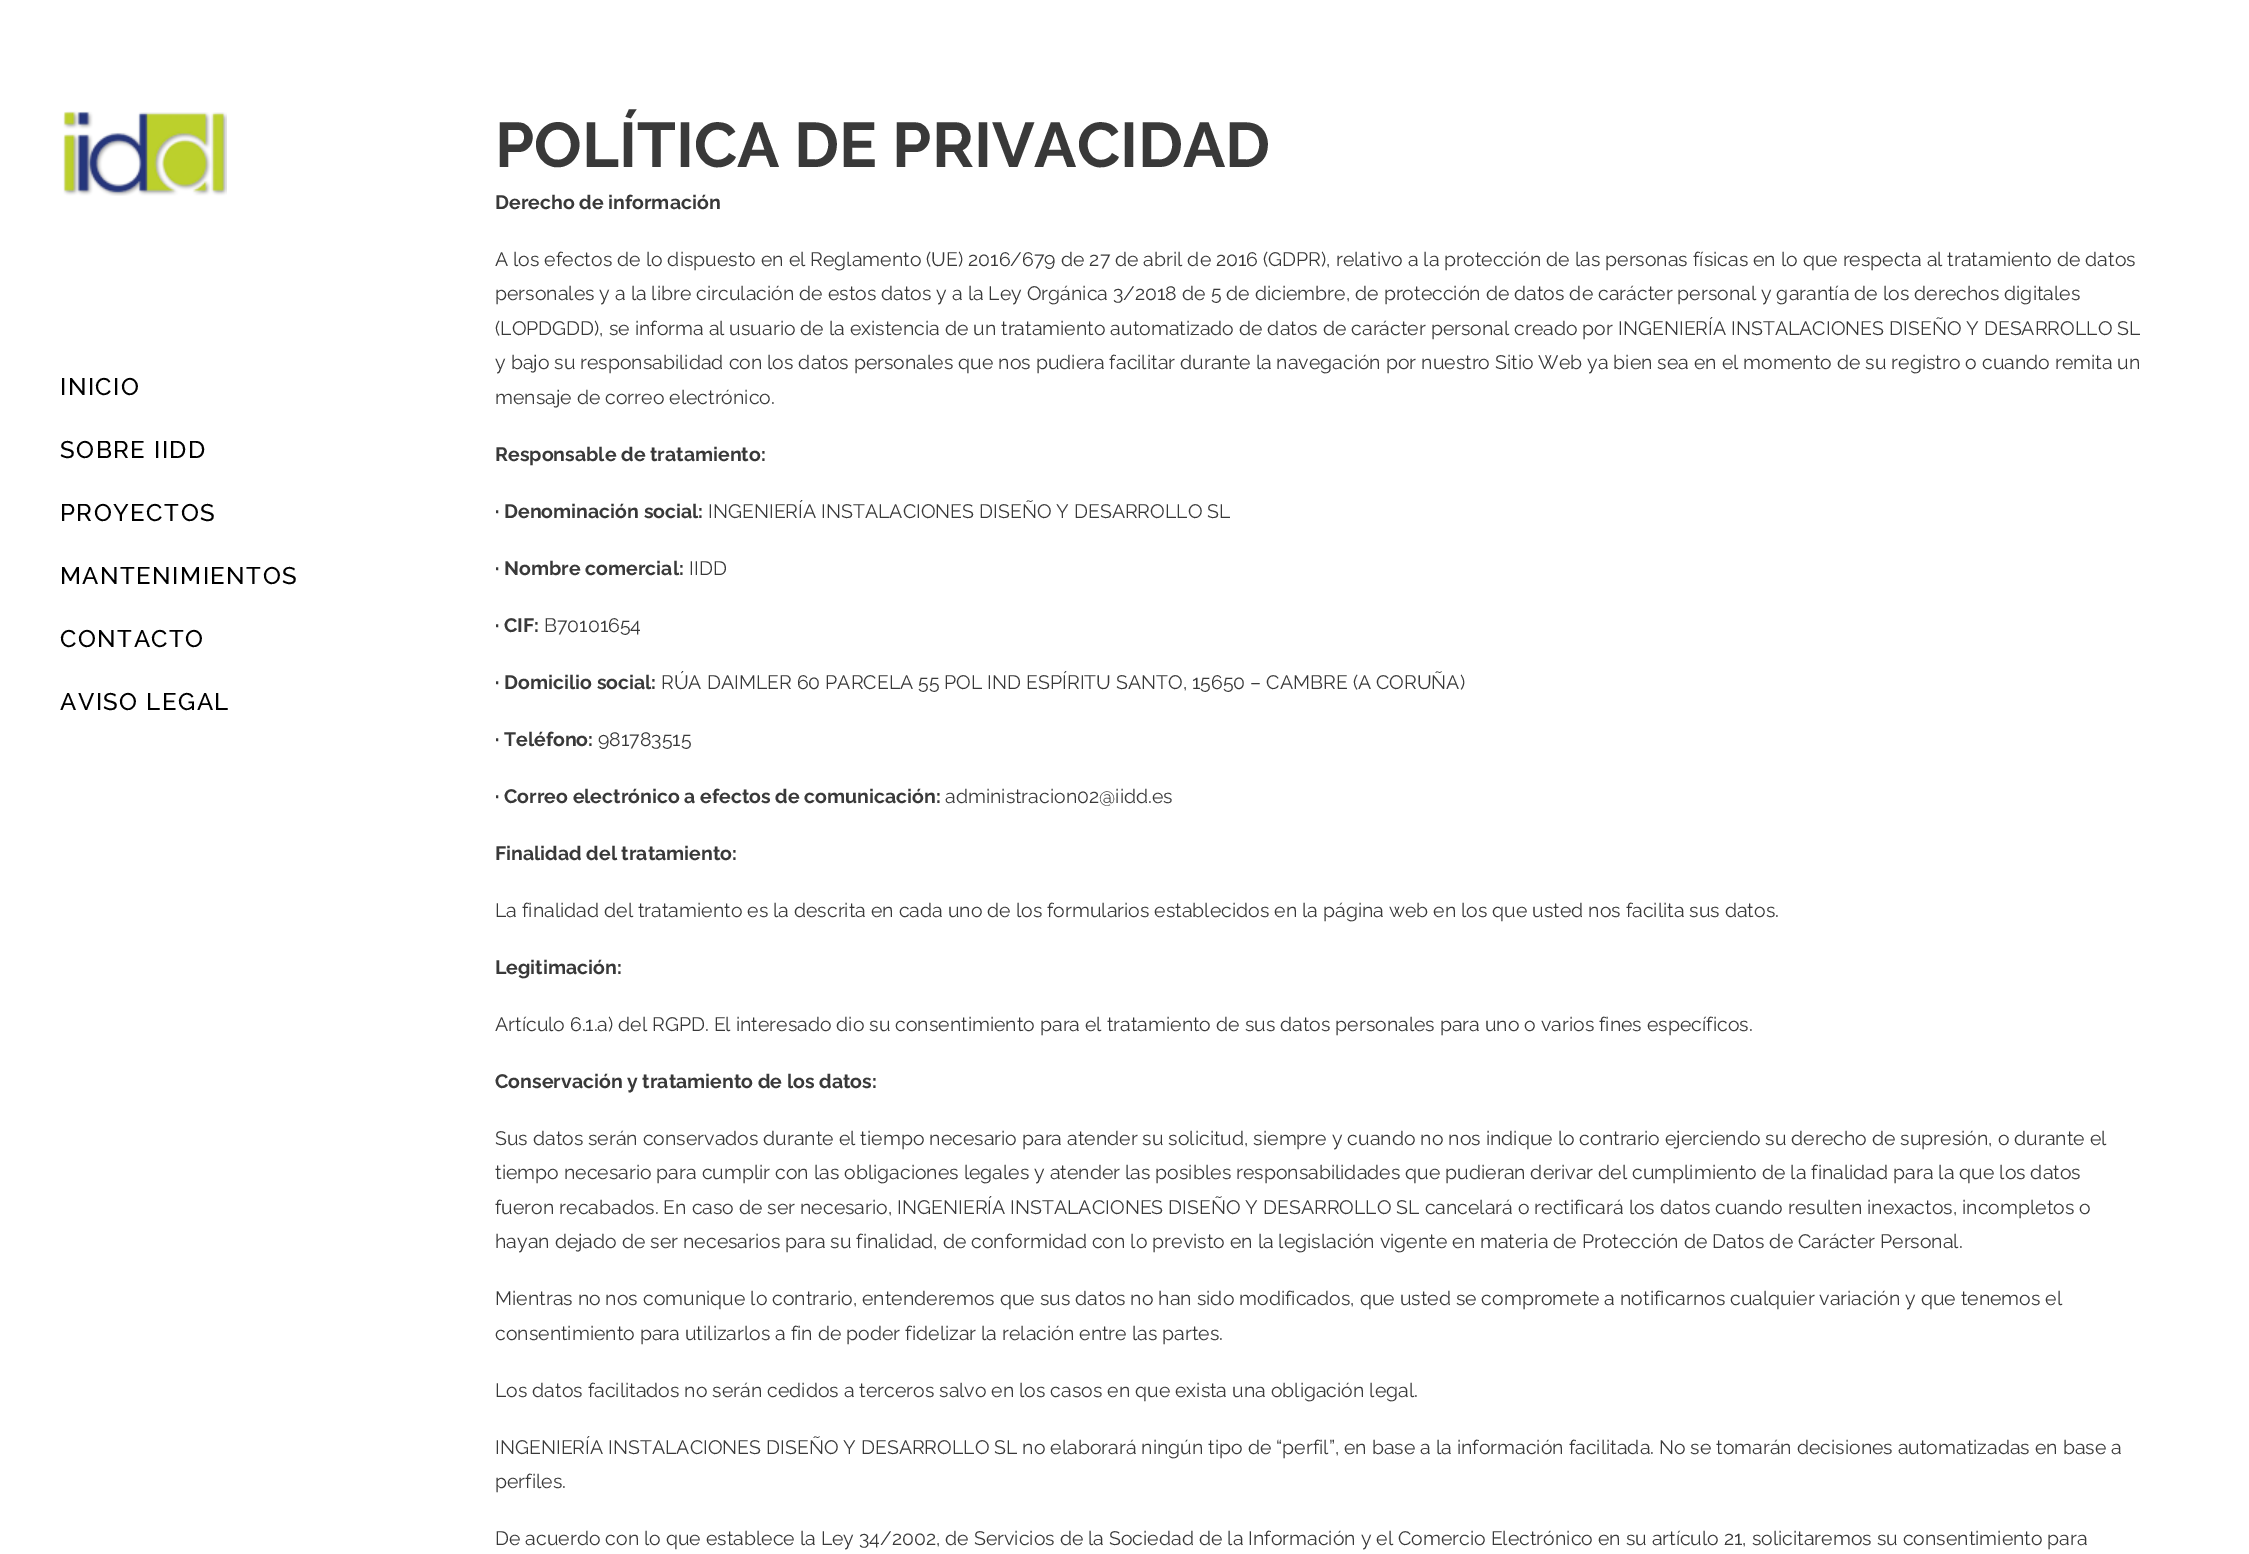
%!PS
<< /PageSize [2249 1554] >> setpagedevice
/mt/moveto load def
/co { dup -16 bitshift 255 div exch dup -8 bitshift 255 and 255 div exch 255 and 255 div setrgbcolor } def
/fn { [ exch dup neg 0 0 3 -1 roll 0 0 ] selectfont } def
/tx { co fn moveto show } def
/bx { co rectfill } def
/im { 5 dict begin { /h /w /y /x /name } { exch def } forall
  gsave x y translate w h scale
  w h 8 [w 0 0 h 0 0] name (r) file false 3 colorimage grestore end } def
0 1554 translate 1 -1 scale
4 setmiterlimit
0 0 2249 1554 16#FFFFFF bx
(media/1.raw) 63 111 164 85 im
/Raleway-Medium 24 fn
16#000000 co
60 395 mt 1.5 0 (INICIO) ashow
60 458 mt 1.5 0 (SOBRE IIDD) ashow
60 521 mt 1.5 0 (PROYECTOS) ashow
60 584 mt 1.5 0 (MANTENIMIENTOS) ashow
60 647 mt 1.5 0 (CONTACTO) ashow
60 710 mt 1.5 0 (AVISO LEGAL) ashow
(POLÍTICA DE PRIVACIDAD) 495 167 /Raleway-Bold 63 16#393939 tx
(Derecho de información) 495 209 /Raleway-Bold 19.5 16#393939 tx
(A los efectos de lo dispuesto en el Reglamento \(UE\) 2016/679 de 27 de abril de 2016 \(GDPR\), relativo a la protección de las personas físicas en lo que respecta al tratamiento de datos) 495 266 /Raleway-Regular 19.5 16#393939 tx
(personales y a la libre circulación de estos datos y a la Ley Orgánica 3/2018 de 5 de diciembre, de protección de datos de carácter personal y garantía de los derechos digitales) 495 300 /Raleway-Regular 19.5 16#393939 tx
(\(LOPDGDD\), se informa al usuario de la existencia de un tratamiento automatizado de datos de carácter personal creado por INGENIERÍA INSTALACIONES DISEÑO Y DESARROLLO SL) 495 335 /Raleway-Regular 19.5 16#393939 tx
(y bajo su responsabilidad con los datos personales que nos pudiera facilitar durante la navegación por nuestro Sitio Web ya bien sea en el momento de su registro o cuando remita un) 495 369 /Raleway-Regular 19.5 16#393939 tx
(mensaje de correo electrónico.) 495 404 /Raleway-Regular 19.5 16#393939 tx
(Responsable de tratamiento:) 495 461 /Raleway-Bold 19.5 16#393939 tx
(· Denominación social:) 495 518 /Raleway-Bold 19.5 16#393939 tx
(INGENIERÍA INSTALACIONES DISEÑO Y DESARROLLO SL) 708 518 /Raleway-Regular 19.5 16#393939 tx
(· Nombre comercial:) 495 575 /Raleway-Bold 19.5 16#393939 tx
(IIDD) 689 575 /Raleway-Regular 19.5 16#393939 tx
(· CIF:) 495 632 /Raleway-Bold 19.5 16#393939 tx
(B70101654) 544 632 /Raleway-Regular 19.5 16#393939 tx
(· Domicilio social:) 495 689 /Raleway-Bold 19.5 16#393939 tx
(RÚA DAIMLER 60 PARCELA 55 POL IND ESPÍRITU SANTO, 15650 – CAMBRE \(A CORUÑA\)) 661 689 /Raleway-Regular 19.5 16#393939 tx
(· Teléfono:) 495 746 /Raleway-Bold 19.5 16#393939 tx
(981783515) 598 746 /Raleway-Regular 19.5 16#393939 tx
(· Correo electrónico a efectos de comunicación:) 495 803 /Raleway-Bold 19.5 16#393939 tx
(administracion02@iidd.es) 945 803 /Raleway-Regular 19.5 16#393939 tx
(Finalidad del tratamiento:) 495 860 /Raleway-Bold 19.5 16#393939 tx
(La finalidad del tratamiento es la descrita en cada uno de los formularios establecidos en la página web en los que usted nos facilita sus datos.) 495 917 /Raleway-Regular 19.5 16#393939 tx
(Legitimación:) 495 974 /Raleway-Bold 19.5 16#393939 tx
(Artículo 6.1.a\) del RGPD. El interesado dio su consentimiento para el tratamiento de sus datos personales para uno o varios fines específicos.) 495 1031 /Raleway-Regular 19.5 16#393939 tx
(Conservación y tratamiento de los datos:) 495 1088 /Raleway-Bold 19.5 16#393939 tx
(Sus datos serán conservados durante el tiempo necesario para atender su solicitud, siempre y cuando no nos indique lo contrario ejerciendo su derecho de supresión, o durante el) 495 1145 /Raleway-Regular 19.5 16#393939 tx
(tiempo necesario para cumplir con las obligaciones legales y atender las posibles responsabilidades que pudieran derivar del cumplimiento de la finalidad para la que los datos) 495 1179 /Raleway-Regular 19.5 16#393939 tx
(fueron recabados. En caso de ser necesario, INGENIERÍA INSTALACIONES DISEÑO Y DESARROLLO SL cancelará o rectificará los datos cuando resulten inexactos, incompletos o) 495 1214 /Raleway-Regular 19.5 16#393939 tx
(hayan dejado de ser necesarios para su finalidad, de conformidad con lo previsto en la legislación vigente en materia de Protección de Datos de Carácter Personal.) 495 1248 /Raleway-Regular 19.5 16#393939 tx
(Mientras no nos comunique lo contrario, entenderemos que sus datos no han sido modificados, que usted se compromete a notificarnos cualquier variación y que tenemos el) 495 1305 /Raleway-Regular 19.5 16#393939 tx
(consentimiento para utilizarlos a fin de poder fidelizar la relación entre las partes.) 495 1340 /Raleway-Regular 19.5 16#393939 tx
(Los datos facilitados no serán cedidos a terceros salvo en los casos en que exista una obligación legal.) 495 1397 /Raleway-Regular 19.5 16#393939 tx
(INGENIERÍA INSTALACIONES DISEÑO Y DESARROLLO SL no elaborará ningún tipo de “perfil”, en base a la información facilitada. No se tomarán decisiones automatizadas en base a) 495 1454 /Raleway-Regular 19.5 16#393939 tx
(perfiles.) 495 1488 /Raleway-Regular 19.5 16#393939 tx
(De acuerdo con lo que establece la Ley 34/2002, de Servicios de la Sociedad de la Información y el Comercio Electrónico en su artículo 21, solicitaremos su consentimiento para) 495 1545 /Raleway-Regular 19.5 16#393939 tx
showpage
